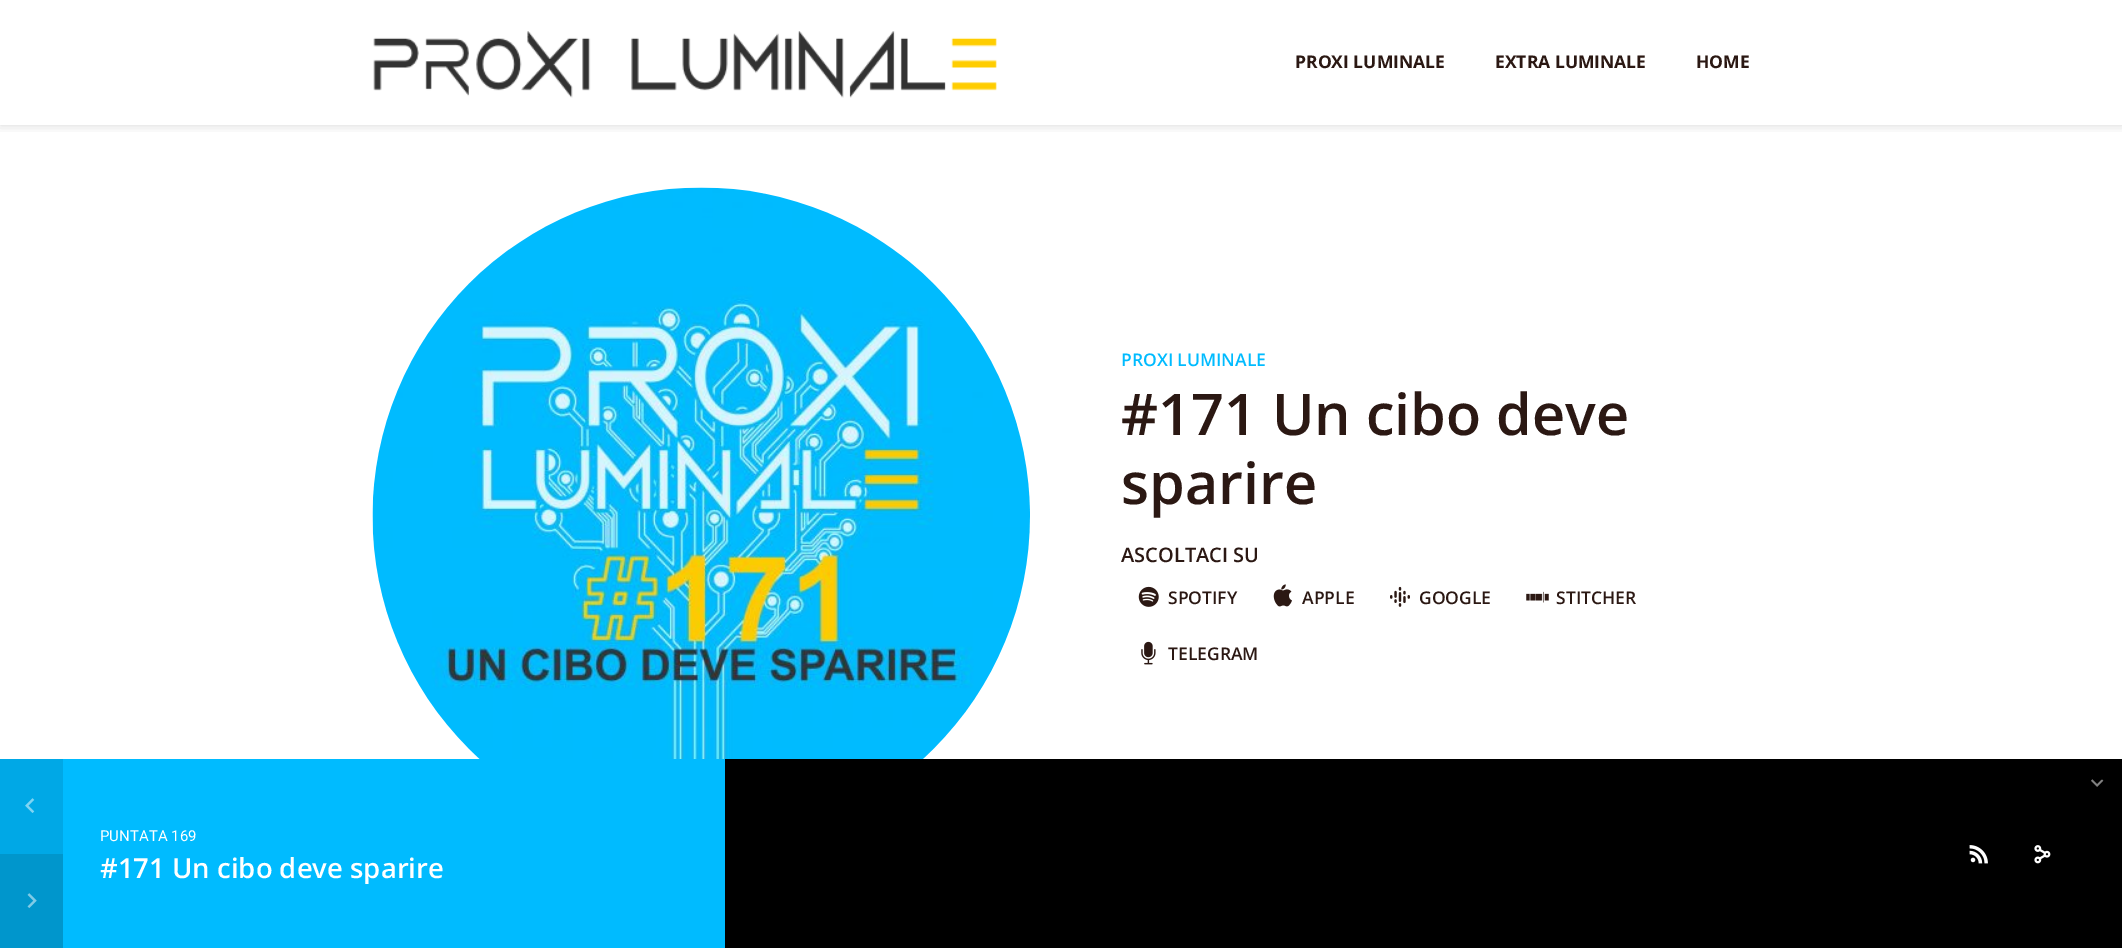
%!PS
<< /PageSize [2122 948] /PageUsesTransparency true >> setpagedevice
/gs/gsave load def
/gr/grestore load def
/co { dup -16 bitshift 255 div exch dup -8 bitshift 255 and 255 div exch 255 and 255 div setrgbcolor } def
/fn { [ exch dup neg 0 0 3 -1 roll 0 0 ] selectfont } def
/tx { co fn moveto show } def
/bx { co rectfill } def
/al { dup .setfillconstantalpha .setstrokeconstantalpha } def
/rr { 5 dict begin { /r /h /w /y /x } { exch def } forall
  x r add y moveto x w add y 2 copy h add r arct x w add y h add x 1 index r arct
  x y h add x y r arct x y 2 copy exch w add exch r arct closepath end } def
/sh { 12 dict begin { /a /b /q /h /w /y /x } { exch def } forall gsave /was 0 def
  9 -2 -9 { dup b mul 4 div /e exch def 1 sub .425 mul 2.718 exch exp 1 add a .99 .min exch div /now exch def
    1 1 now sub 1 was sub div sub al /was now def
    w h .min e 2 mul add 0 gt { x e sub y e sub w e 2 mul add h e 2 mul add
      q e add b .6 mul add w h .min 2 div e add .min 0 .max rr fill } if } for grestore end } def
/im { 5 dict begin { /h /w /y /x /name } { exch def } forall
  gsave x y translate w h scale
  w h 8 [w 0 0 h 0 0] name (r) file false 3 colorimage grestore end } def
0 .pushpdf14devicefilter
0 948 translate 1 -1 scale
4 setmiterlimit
0 0 2122 948 16#FFFFFF bx
gs
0 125 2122 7 rectclip
16#000000 co
0 0 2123 125 0 6 .15 sh
gr
(media/1.raw) 373 31 624 67 im
(media/2.raw) 372 187 658 572 im
(media/3.raw) 1138 586 21 21 im
(media/4.raw) 1273 584 19 23 im
(media/5.raw) 1390 586 20 21 im
(media/6.raw) 1526 591 23 12 im
(media/7.raw) 1141 641 15 24 im
725 759 1397 189 16#000000 bx
63 759 662 189 16#00BBFF bx
0 759 63 95 16#00A8E6 bx
(media/8.raw) 25 798 10 15 im
0 854 63 94 16#0096CC bx
(media/9.raw) 27 893 10 15 im
(media/10.raw) 1969 845 19 19 im
(media/11.raw) 2034 845 17 19 im
(PROXI LUMINALE) 1295 68 /OpenSans-Bold 17.5 16#2B1813 tx
(EXTRA LUMINALE) 1495 68 /OpenSans-Bold 17.5 16#2B1813 tx
(HOME) 1696 68 /OpenSans-Bold 17.5 16#2B1813 tx
(PROXI LUMINALE) 1121 366 /OpenSans-SemiBold 17.5 16#00BBFF tx
(#171 Un cibo deve) 1121 435 /OpenSans-SemiBold 57.5 16#2B1813 tx
(sparire) 1121 504 /OpenSans-SemiBold 57.5 16#2B1813 tx
(ASCOLTACI SU) 1121 562 /OpenSans-SemiBold 20 16#2B1813 tx
(SPOTIFY) 1168 604 /OpenSans-SemiBold 17.5 16#2B1813 tx
(APPLE) 1302 604 /OpenSans-SemiBold 17.5 16#2B1813 tx
(GOOGLE) 1419 604 /OpenSans-SemiBold 17.5 16#2B1813 tx
(STITCHER) 1556 604 /OpenSans-SemiBold 17.5 16#2B1813 tx
(TELEGRAM) 1168 660 /OpenSans-SemiBold 17.5 16#2B1813 tx
(꤅) 2085 793 /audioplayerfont-Regular 25 16#808080 tx
(PUNTATA 169) 100 841 /Roboto-Regular 15 16#FFFFFF tx
gs
100 850 419 34 rectclip
(#171 Un cibo deve sparire) 100 878 /OpenSans-SemiBold 27.5 16#FFFFFF tx
gr
.poppdf14devicefilter showpage
